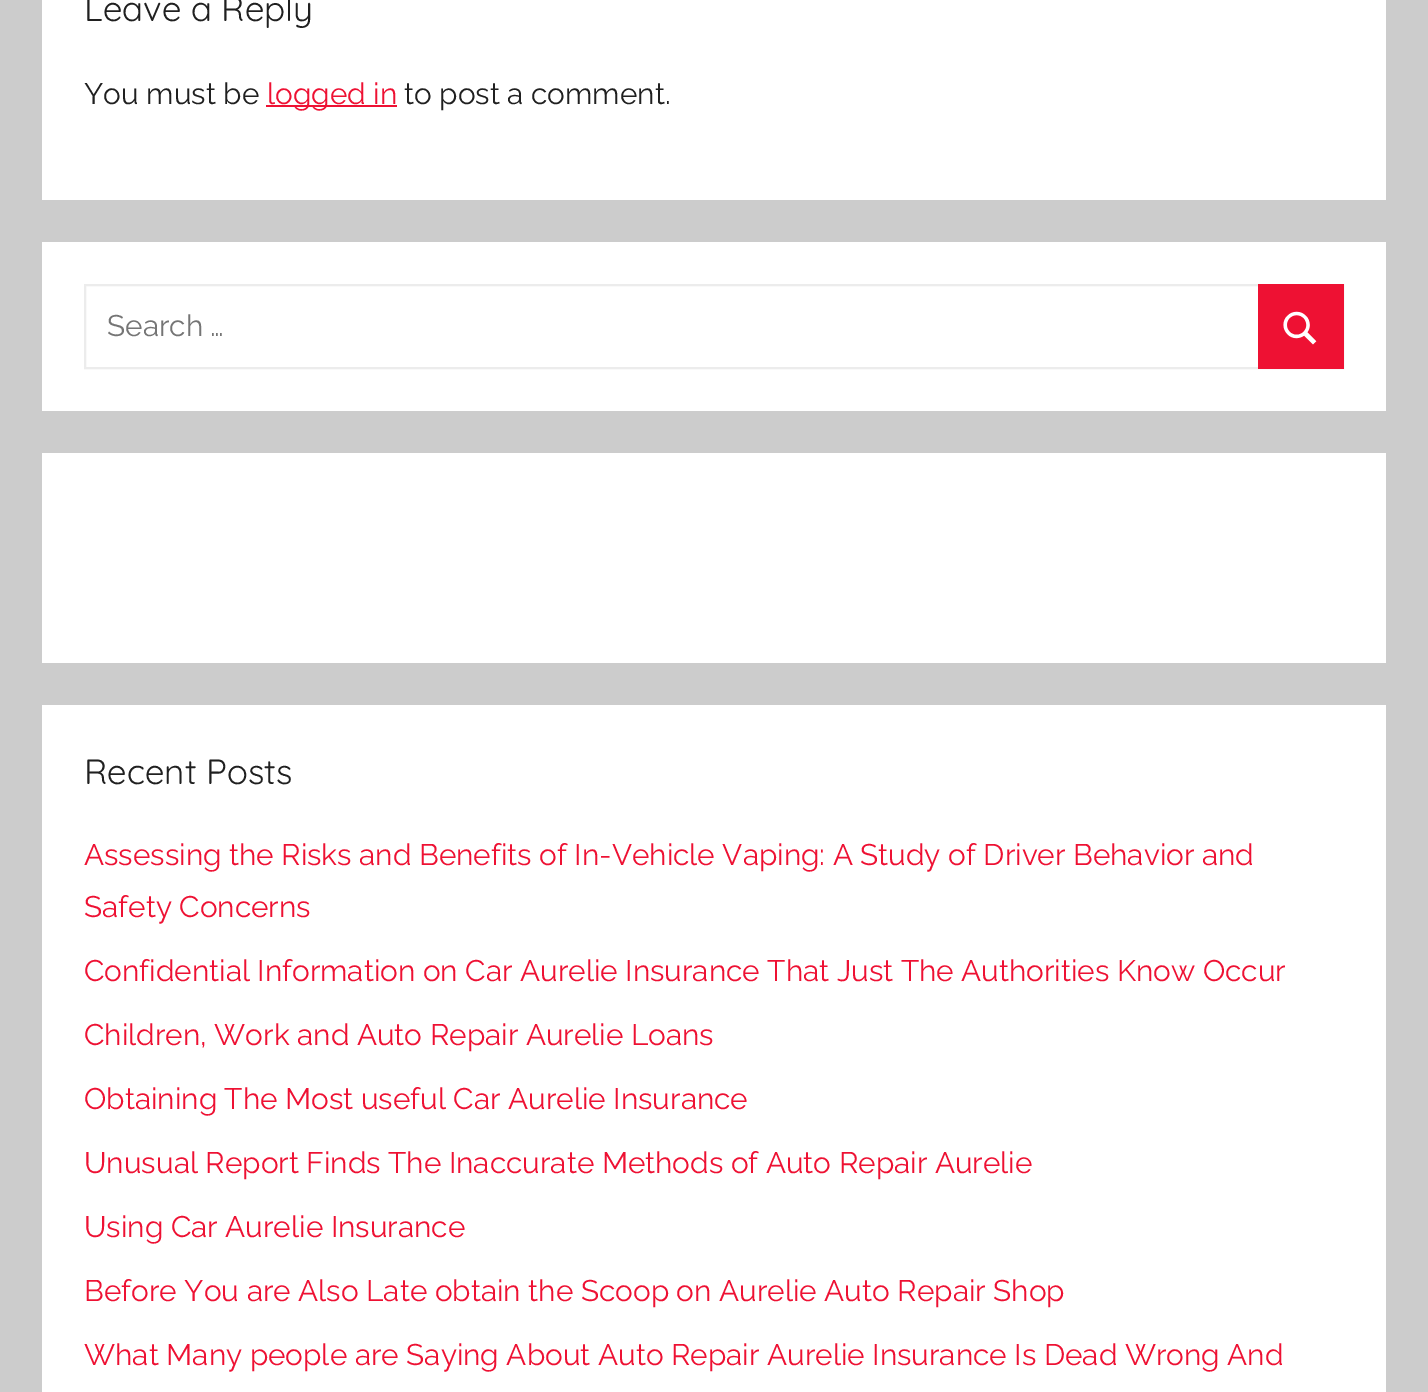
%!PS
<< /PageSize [1428 1392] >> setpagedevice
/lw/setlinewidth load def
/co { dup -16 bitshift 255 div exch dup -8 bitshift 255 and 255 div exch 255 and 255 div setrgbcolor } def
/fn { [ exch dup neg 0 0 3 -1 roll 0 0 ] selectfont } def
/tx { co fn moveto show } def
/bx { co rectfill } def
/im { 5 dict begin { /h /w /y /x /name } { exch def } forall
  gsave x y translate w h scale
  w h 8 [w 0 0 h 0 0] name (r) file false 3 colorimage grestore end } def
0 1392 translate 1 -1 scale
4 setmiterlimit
0 0 1428 1392 16#CCCCCC bx
42 0 1344 200 16#FFFFFF bx
266 105 131 2 16#EE1133 bx
42 242 1344 169 16#FFFFFF bx
16#ECECEC co
2 lw
85 285 1258 83 rectstroke
1258 284 86 85 16#EE1133 bx
(media/1.raw) 1283 311 34 34 im
42 453 1344 210 16#FFFFFF bx
42 705 1344 687 16#FFFFFF bx
(Leave a Reply) 84 21 /Quicksand-Light 35 16#202020 tx
(You must be) 84 104 /Raleway-Thin 29.75 16#202020 tx
(logged in) 267 104 /Raleway-Thin 29.75 16#EE1133 tx
(to post a comment.) 404 104 /Raleway-Thin 29.75 16#202020 tx
(Search …) 107 336 /Raleway-Thin 29.75 16#757575 tx
(Recent Posts) 84 784 /Quicksand-Light 35 16#202020 tx
(Assessing the Risks and Benefits of In-Vehicle Vaping: A Study of Driver Behavior and) 84 865 /Raleway-Thin 29.75 16#EE1133 tx
(Safety Concerns) 84 917 /Raleway-Thin 29.75 16#EE1133 tx
(Confidential Information on Car Aurelie Insurance That Just The Authorities Know Occur) 84 981 /Raleway-Thin 29.75 16#EE1133 tx
(Children, Work and Auto Repair Aurelie Loans) 84 1045 /Raleway-Thin 29.75 16#EE1133 tx
(Obtaining The Most useful Car Aurelie Insurance) 84 1109 /Raleway-Thin 29.75 16#EE1133 tx
(Unusual Report Finds The Inaccurate Methods of Auto Repair Aurelie) 84 1173 /Raleway-Thin 29.75 16#EE1133 tx
(Using Car Aurelie Insurance) 84 1237 /Raleway-Thin 29.75 16#EE1133 tx
(Before You are Also Late obtain the Scoop on Aurelie Auto Repair Shop) 84 1301 /Raleway-Thin 29.75 16#EE1133 tx
(What Many people are Saying About Auto Repair Aurelie Insurance Is Dead Wrong And) 84 1365 /Raleway-Thin 29.75 16#EE1133 tx
showpage
